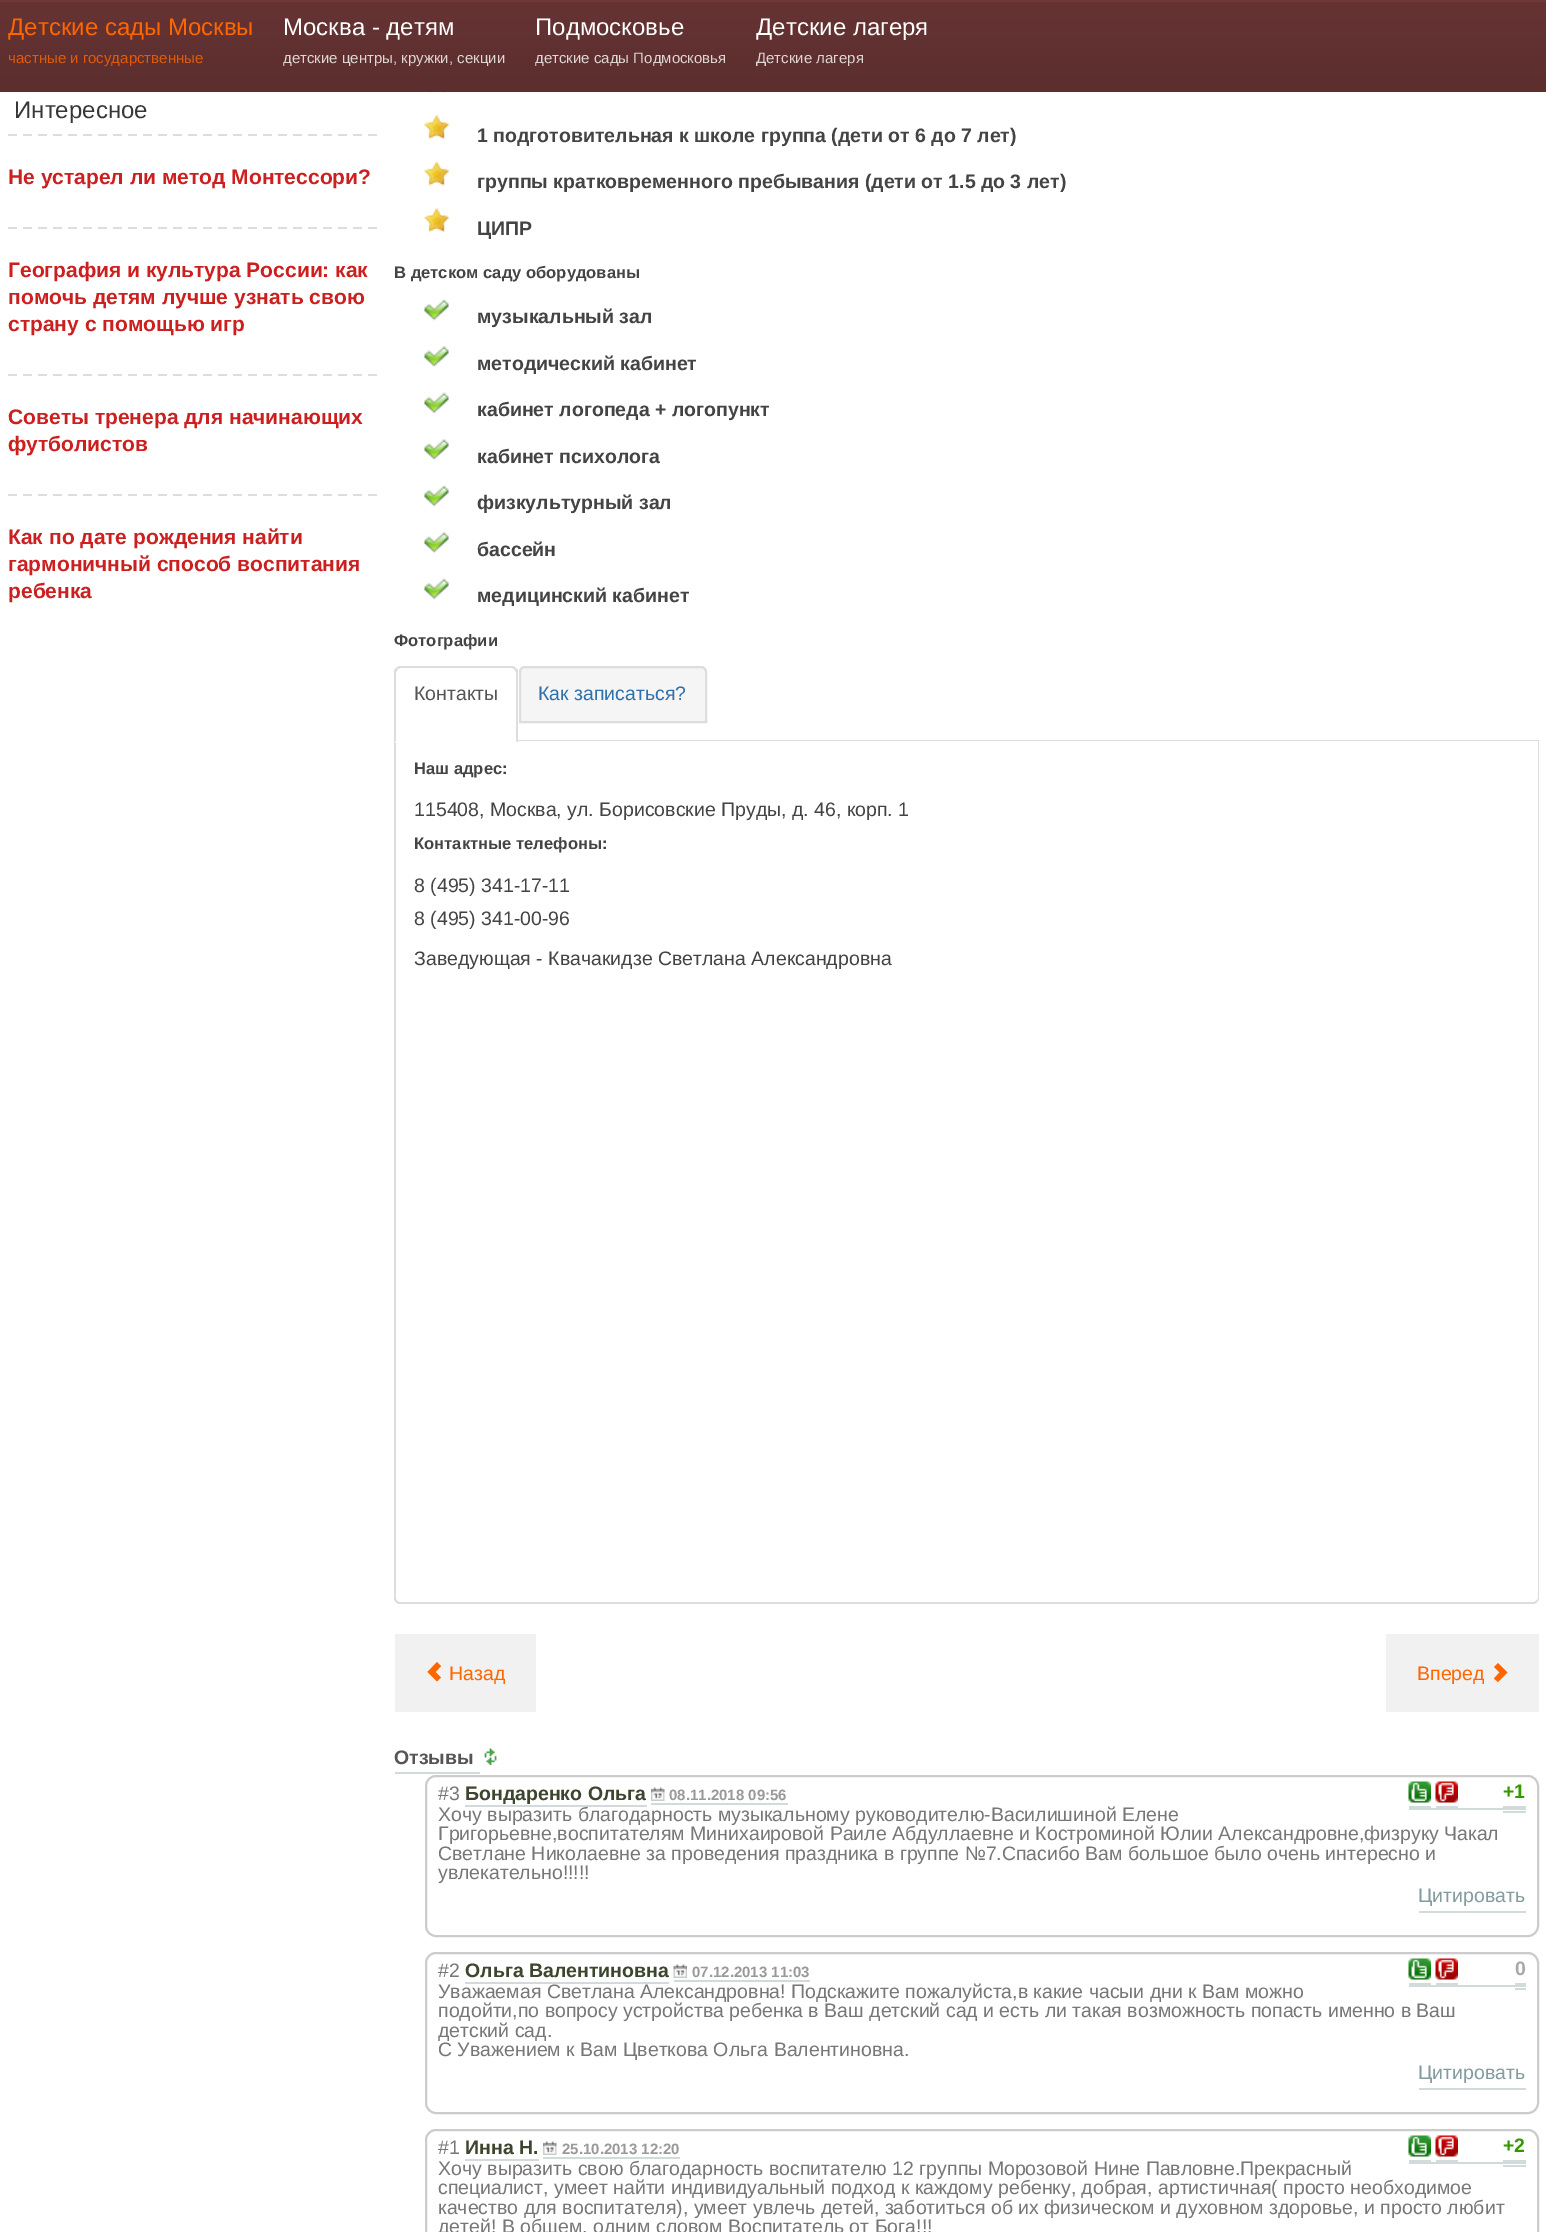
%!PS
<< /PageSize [1546 2232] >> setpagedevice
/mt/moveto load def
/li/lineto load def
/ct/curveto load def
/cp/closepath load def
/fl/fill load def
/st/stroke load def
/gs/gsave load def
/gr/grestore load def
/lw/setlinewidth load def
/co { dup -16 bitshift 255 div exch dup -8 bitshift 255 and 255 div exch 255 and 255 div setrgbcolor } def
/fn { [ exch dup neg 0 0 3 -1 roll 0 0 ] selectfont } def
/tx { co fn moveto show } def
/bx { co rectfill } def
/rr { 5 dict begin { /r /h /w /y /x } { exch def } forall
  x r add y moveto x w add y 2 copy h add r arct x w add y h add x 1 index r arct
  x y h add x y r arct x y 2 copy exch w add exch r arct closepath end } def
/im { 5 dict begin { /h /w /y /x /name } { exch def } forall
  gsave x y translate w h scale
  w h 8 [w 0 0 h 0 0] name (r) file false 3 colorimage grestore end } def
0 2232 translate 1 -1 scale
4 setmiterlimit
0 0 1546 2232 16#FFFFFF bx
gs 0 2 mt 1546 2 li 1546 92 li 0 92 li cp clip newpath
<< /ShadingType 2 /ColorSpace /DeviceRGB /Coords [773 1.5 773 92] /Extend [true true] /Function << /FunctionType 2 /Domain [0 1] /C0 [.4 .2 .2] /C1 [.361 .18 .18] /N 1 >> >> shfill gr
0 0 1546 2 16#703838 bx
(media/1.raw) 8 134 369 2 im
(media/1.raw) 8 227 369 2 im
(media/1.raw) 8 374 369 2 im
(media/1.raw) 8 494 369 2 im
(media/2.raw) 429 92 16 1 im
(media/3.raw) 424 115 25 24 im
(media/4.raw) 424 161 25 25 im
(media/3.raw) 424 208 25 24 im
(media/5.raw) 424 299 25 22 im
(media/6.raw) 424 346 25 21 im
(media/5.raw) 424 392 25 22 im
(media/6.raw) 424 439 25 21 im
(media/5.raw) 424 485 25 22 im
(media/6.raw) 424 532 25 21 im
(media/5.raw) 424 578 25 22 im
518 740 1021 1 16#DDDDDD bx
394 741 mt 1539 741 li 1539 1598 li 1539 1601 1536 1604 1533 1604 ct 400 1604 li 397 1604 394 1601 394 1598 ct cp 396 741 mt 1538 741 li 1538 1598 li 1538 1600 1535 1602 1533 1602 ct 400 1602 li 398 1602 396 1600 396 1598 ct cp eofill
16#FFFFFF co
401 666 mt 512 666 li 515.5 666 518 668.5 518 672 ct 518 743 li 395 743 li 395 672 li 395 668.5 397.5 666 401 666 ct cp fl
16#DDDDDD co
400 666 mt 399 666 397 667 396 668 ct 398 669 li 400 668 li 512 668 li 514 669 li 516 668 li 515 667 513 666 512 666 ct cp fl
518 742 mt 516 741 li 516 672 li 514 669 li 516 668 li 518 670 li cp fl
394 670 mt 396 668 li 398 669 li 396 672 li 396 741 li 395 742 li 394 742 li cp fl
16#F5F5F5 co
525 667 mt 701 667 li 704 667 706 669 706 672 ct 706 722 li 520 722 li 520 672 li 520 669 522 667 525 667 ct cp gs fl gr
16#DDDDDD co
2 lw
st
395 1634 141 78 16#F1F1F1 bx
16#FF6600 co
427.5 1672 mt 437 1681.5 li 441 1677.5 li 435.5 1672 li 441 1666 li 437 1662 li cp fl
1386 1634 153 78 16#F1F1F1 bx
16#FF6600 co
1494 1678.5 mt 1499.5 1672.5 li 1494 1667 li 1498 1663 li 1507.5 1672.5 li 1498 1682 li cp fl
395 1772 85 2 16#D2DADB bx
(media/7.raw) 484 1748 13 17 im
16#CCCCCC co
426 1776 1112 160 10 rr st
465 1805 182 2 16#D2DADB bx
(media/8.raw) 651 1787 14 14 im
651 1803 137 2 16#D2DADB bx
1409 1808 117 2 16#D2DADB bx
1409 1806 22 2 16#D2DADB bx
1436 1806 22 2 16#D2DADB bx
1503 1811 23 2 16#D2DADB bx
(media/9.raw) 1408 1781 23 22 im
(media/10.raw) 1435 1781 23 22 im
1503 1806 23 2 16#D2DADB bx
1419 1911 107 2 16#D2DADB bx
16#CCCCCC co
426 1953 1112 160 10 rr st
465 1982 204 2 16#D2DADB bx
(media/11.raw) 673 1964 14 14 im
674 1980 136 2 16#D2DADB bx
1409 1985 117 2 16#D2DADB bx
1409 1983 22 2 16#D2DADB bx
1436 1983 22 2 16#D2DADB bx
1515 1988 11 2 16#D2DADB bx
(media/9.raw) 1408 1958 23 22 im
(media/10.raw) 1435 1958 23 22 im
1515 1983 11 2 16#D2DADB bx
1419 2088 107 2 16#D2DADB bx
16#CCCCCC co
426 2130 1112 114 10 rr st
465 2159 74 2 16#D2DADB bx
(media/8.raw) 543 2141 14 14 im
543 2157 137 2 16#D2DADB bx
1409 2162 117 2 16#D2DADB bx
1409 2160 22 2 16#D2DADB bx
1436 2160 22 2 16#D2DADB bx
1503 2165 23 2 16#D2DADB bx
(media/9.raw) 1408 2135 23 22 im
(media/10.raw) 1435 2135 23 22 im
1503 2160 23 2 16#D2DADB bx
(Детские сады Москвы) 8 35 /LiberationSans-Regular 24 16#FF6600 tx
(частные и государственные) 8 63 /LiberationSans-Regular 15 16#DF5B0A tx
(Москва - детям) 283 35 /LiberationSans-Regular 24 16#FFFFFF tx
(детские центры, кружки, секции) 283 63 /LiberationSans-Regular 15 16#DFD6D6 tx
(Подмосковье) 535 35 /LiberationSans-Regular 24 16#FFFFFF tx
(детские сады Подмосковья) 535 63 /LiberationSans-Regular 15 16#DFD6D6 tx
(Детские лагеря) 756 35 /LiberationSans-Regular 24 16#FFFFFF tx
(Детские лагеря) 756 63 /LiberationSans-Regular 15 16#DFD6D6 tx
(Интересное) 14 118 /LiberationSans-Regular 24 16#373737 tx
(Не устарел ли метод Монтессори?) 8 184 /LiberationSans-Bold 21 16#CC1F1F tx
(География и культура России: как) 8 277 /LiberationSans-Bold 21 16#CC1F1F tx
(помочь детям лучше узнать свою) 8 304 /LiberationSans-Bold 21 16#CC1F1F tx
(страну с помощью игр) 8 331 /LiberationSans-Bold 21 16#CC1F1F tx
(Советы тренера для начинающих) 8 424 /LiberationSans-Bold 21 16#CC1F1F tx
(футболистов) 8 451 /LiberationSans-Bold 21 16#CC1F1F tx
(Как по дате рождения найти) 8 544 /LiberationSans-Bold 21 16#CC1F1F tx
(гармоничный способ воспитания) 8 571 /LiberationSans-Bold 21 16#CC1F1F tx
(ребенка) 8 598 /LiberationSans-Bold 21 16#CC1F1F tx
(1 подготовительная к школе группа \(дети от 6 до 7 лет\)) 477 142 /LiberationSans-Bold 19.5 16#444444 tx
(группы кратковременного пребывания \(дети от 1.5 до 3 лет\)) 477 188 /LiberationSans-Bold 19.5 16#444444 tx
(ЦИПР) 477 235 /LiberationSans-Bold 19.5 16#444444 tx
(В детском саду оборудованы) 394 278 /LiberationSans-Bold 16.6 16#444444 tx
(музыкальный зал) 477 323 /LiberationSans-Bold 19.5 16#444444 tx
(методический кабинет) 477 370 /LiberationSans-Bold 19.5 16#444444 tx
(кабинет логопеда + логопункт) 477 416 /LiberationSans-Bold 19.5 16#444444 tx
(кабинет психолога) 477 463 /LiberationSans-Bold 19.5 16#444444 tx
(физкультурный зал) 477 509 /LiberationSans-Bold 19.5 16#444444 tx
(бассейн) 477 556 /LiberationSans-Bold 19.5 16#444444 tx
(медицинский кабинет) 477 602 /LiberationSans-Bold 19.5 16#444444 tx
(Фотографии) 394 646 /LiberationSans-Bold 16.6 16#444444 tx
(Контакты) 414 700 /LiberationSans-Regular 19.5 16#555555 tx
(Как записаться?) 538 700 /LiberationSans-Regular 19.5 16#3071A9 tx
(Наш адрес:) 414 774 /LiberationSans-Bold 16.6 16#444444 tx
(115408, Москва, ул. Борисовские Пруды, д. 46, корп. 1) 414 816 /LiberationSans-Regular 19.5 16#444444 tx
(Контактные телефоны:) 414 849 /LiberationSans-Bold 16.6 16#444444 tx
(8 \(495\) 341-17-11) 414 892 /LiberationSans-Regular 19.5 16#444444 tx
(8 \(495\) 341-00-96) 414 925 /LiberationSans-Regular 19.5 16#444444 tx
(Заведующая - Квачакидзе Светлана Александровна) 414 965 /LiberationSans-Regular 19.5 16#444444 tx
(Назад) 449 1680 /LiberationSans-Regular 19.5 16#FF6600 tx
(Вперед) 1417 1680 /LiberationSans-Regular 19.5 16#FF6600 tx
(Отзывы) 394 1764 /LiberationSans-Bold 19.5 16#555555 tx
(#3) 438 1800 /LiberationSans-Regular 19.5 16#777777 tx
(Бондаренко Ольга) 465 1800 /LiberationSans-Bold 19.5 16#3C452D tx
(08.11.2018 09:56) 669 1800 /LiberationSans-Bold 15 16#999999 tx
(+1) 1503 1798 /LiberationSans-Bold 19.5 16#339900 tx
(Хочу выразить благодарность музыкальному руководителю-Василишиной Елене) 438 1821 /LiberationSans-Regular 19.5 16#777777 tx
(Григорьевне,воспитателям Минихаировой Раиле Абдуллаевне и Костроминой Юлии Александровне,физруку Чакал) 438 1840 /LiberationSans-Regular 19.5 16#777777 tx
(Светлане Николаевне за проведения праздника в группе №7.Спасибо Вам большое было очень интересно и) 438 1860 /LiberationSans-Regular 19.5 16#777777 tx
(увлекательно!!!!!) 438 1879 /LiberationSans-Regular 19.5 16#777777 tx
(Цитировать) 1418 1902 /LiberationSans-Regular 19.5 16#849B9F tx
(#2) 438 1977 /LiberationSans-Regular 19.5 16#777777 tx
(Ольга Валентиновна) 465 1977 /LiberationSans-Bold 19.5 16#3C452D tx
(07.12.2013 11:03) 692 1977 /LiberationSans-Bold 15 16#999999 tx
(0) 1515 1975 /LiberationSans-Bold 19.5 16#A9A9A9 tx
(Уважаемая Светлана Александровна! Подскажите пожалуйста,в какие часыи дни к Вам можно) 438 1998 /LiberationSans-Regular 19.5 16#777777 tx
(подойти,по вопросу устройства ребенка в Ваш детский сад и есть ли такая возможность попасть именно в Ваш) 438 2017 /LiberationSans-Regular 19.5 16#777777 tx
(детский сад.) 438 2037 /LiberationSans-Regular 19.5 16#777777 tx
(С Уважением к Вам Цветкова Ольга Валентиновна.) 438 2056 /LiberationSans-Regular 19.5 16#777777 tx
(Цитировать) 1418 2079 /LiberationSans-Regular 19.5 16#849B9F tx
(#1) 438 2154 /LiberationSans-Regular 19.5 16#777777 tx
(Инна Н.) 465 2154 /LiberationSans-Bold 19.5 16#3C452D tx
(25.10.2013 12:20) 562 2154 /LiberationSans-Bold 15 16#999999 tx
(+2) 1503 2152 /LiberationSans-Bold 19.5 16#339900 tx
(Хочу выразить свою благодарность воспитателю 12 группы Морозовой Нине Павловне.Прекрасный) 438 2175 /LiberationSans-Regular 19.5 16#777777 tx
(специалист, умеет найти индивидуальный подход к каждому ребенку, добрая, артистичная\( просто необходимое) 438 2194 /LiberationSans-Regular 19.5 16#777777 tx
(качество для воспитателя\), умеет увлечь детей, заботиться об их физическом и духовном здоровье, и просто любит) 438 2214 /LiberationSans-Regular 19.5 16#777777 tx
(детей! В общем, одним словом Воспитатель от Бога!!!) 438 2233 /LiberationSans-Regular 19.5 16#777777 tx
showpage
